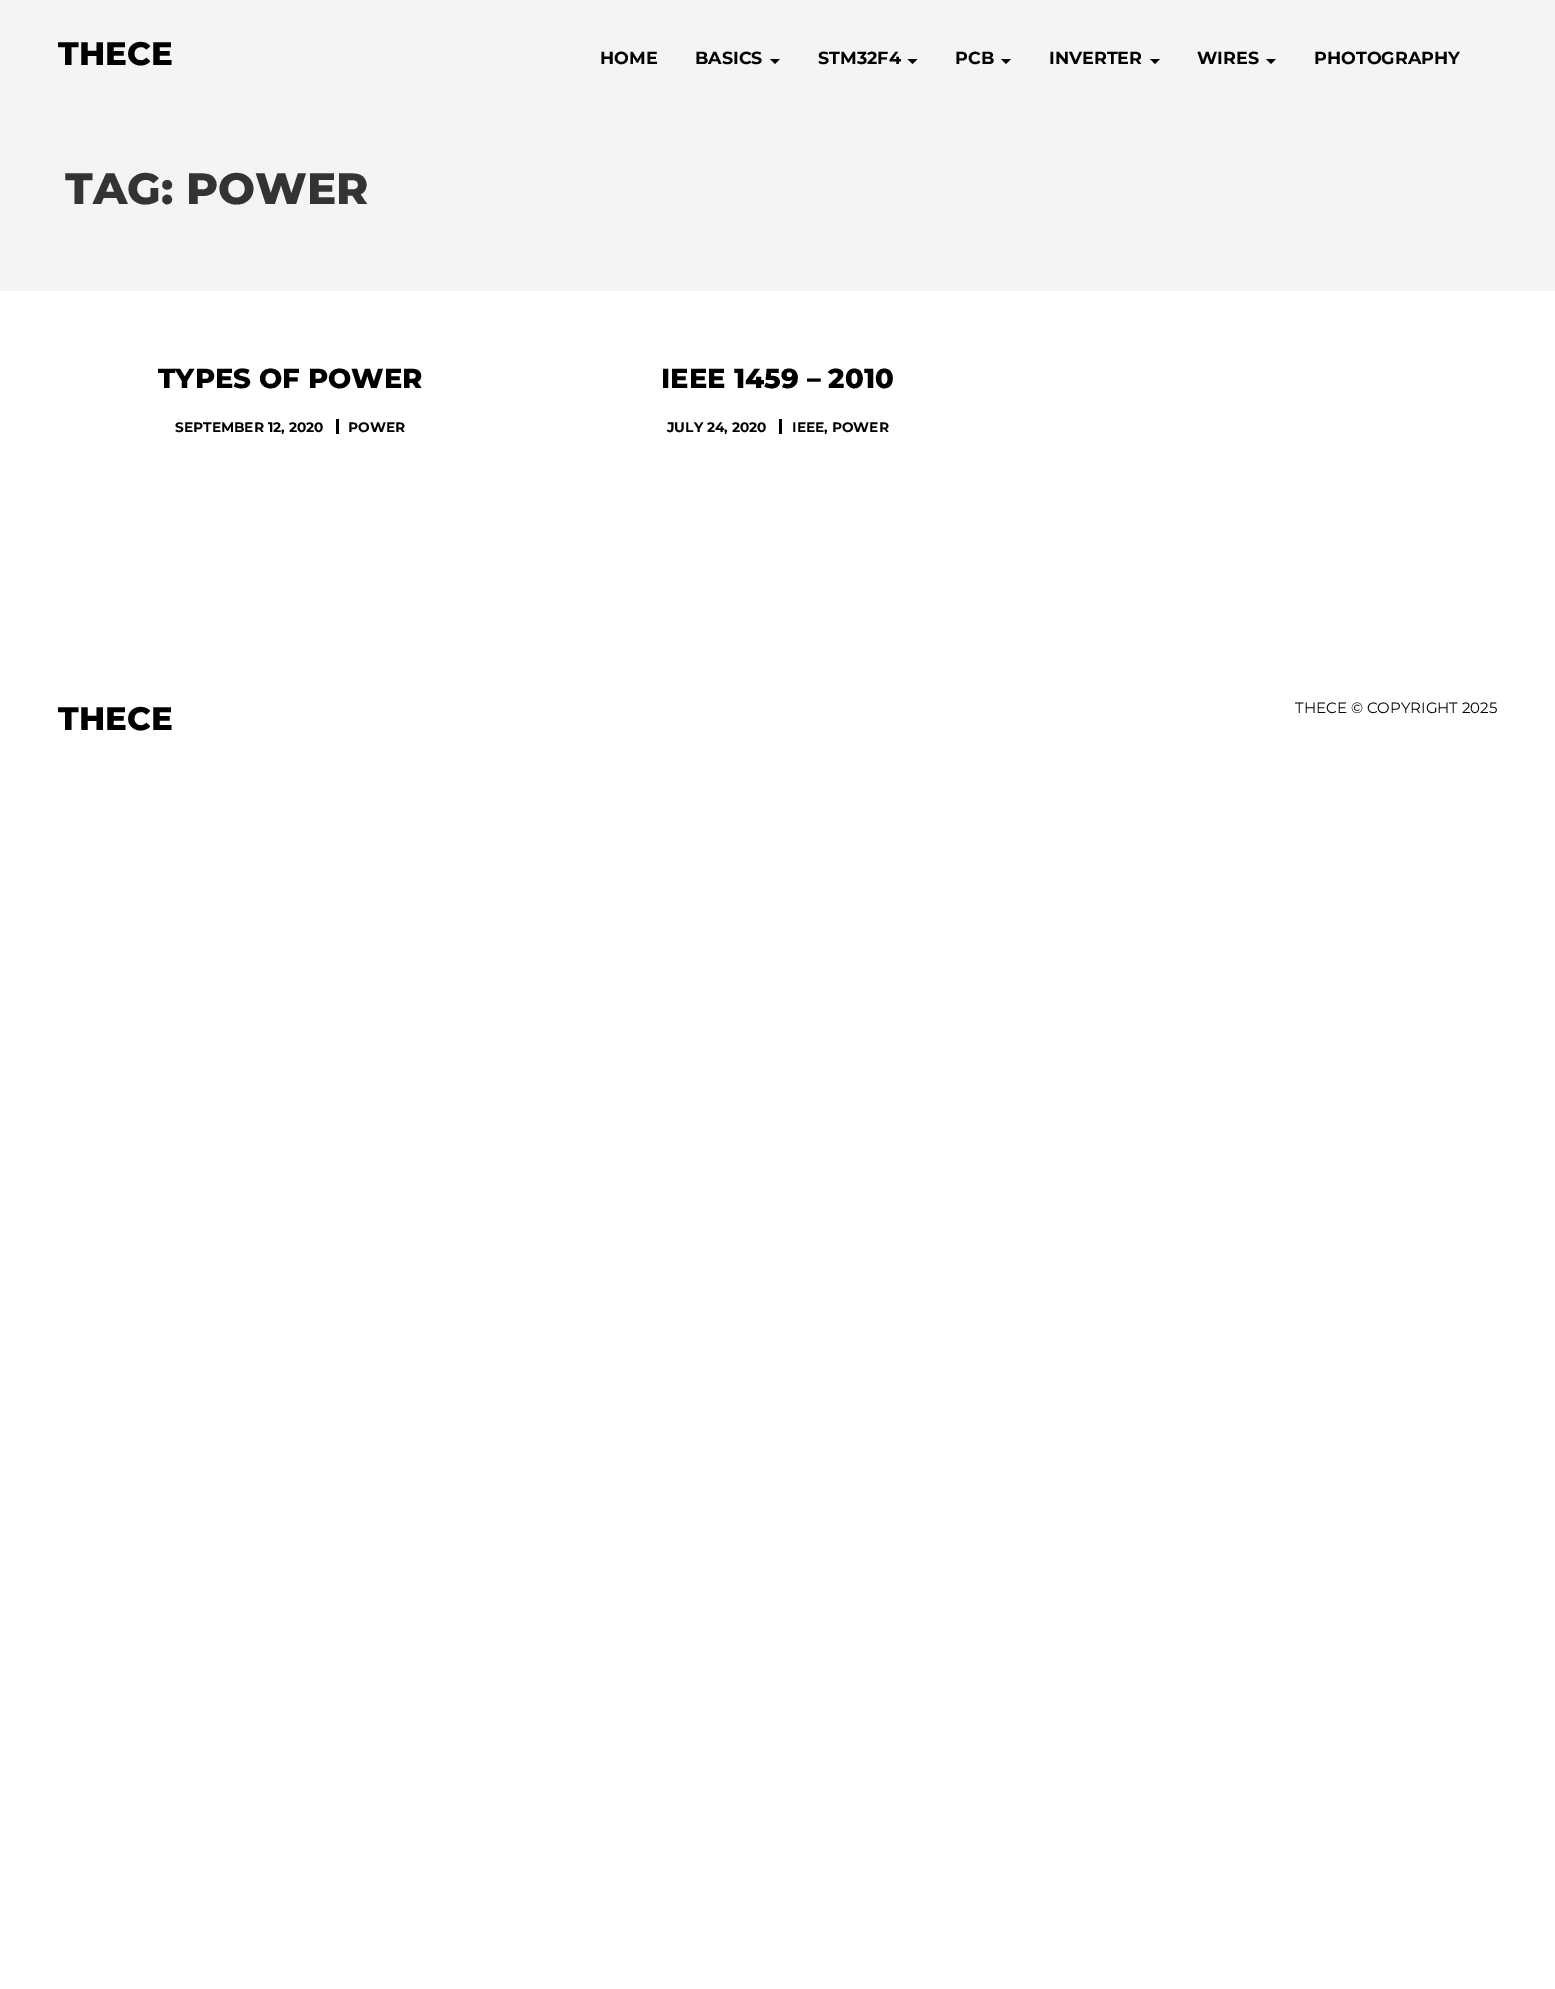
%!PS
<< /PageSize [1555 1989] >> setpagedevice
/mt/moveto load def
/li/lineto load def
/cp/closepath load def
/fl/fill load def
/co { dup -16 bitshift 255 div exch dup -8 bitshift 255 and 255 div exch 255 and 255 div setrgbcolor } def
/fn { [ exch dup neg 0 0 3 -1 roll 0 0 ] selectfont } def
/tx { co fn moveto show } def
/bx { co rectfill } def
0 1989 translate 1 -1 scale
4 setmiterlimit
0 0 1555 1989 16#FFFFFF bx
0 0 1555 291 16#F4F4F4 bx
16#000000 co
770 59 mt 780 59 li 775 64 li cp fl
907.5 59 mt 917.5 59 li 912.5 64 li cp fl
1001 59 mt 1011 59 li 1006 64 li cp fl
1150 59 mt 1160 59 li 1155 64 li cp fl
1266 59 mt 1276 59 li 1271 64 li cp fl
336 419 3 15 16#000000 bx
779 419 3 15 16#000000 bx
(THECE) 58 65 /Montserrat-ExtraBold 32.5 16#000000 tx
(HOME) 600 64 /Montserrat-Bold 17.5 16#000000 tx
(BASICS) 695 64 /Montserrat-Bold 17.5 16#000000 tx
(STM32F4) 818 64 /Montserrat-Bold 17.5 16#000000 tx
(PCB) 955 64 /Montserrat-Bold 17.5 16#000000 tx
(INVERTER) 1049 64 /Montserrat-Bold 17.5 16#000000 tx
(WIRES) 1197 64 /Montserrat-Bold 17.5 16#000000 tx
(PHOTOGRAPHY) 1314 64 /Montserrat-Bold 17.5 16#000000 tx
(TAG: POWER) 65 204 /Montserrat-ExtraBold 43.75 16#333333 tx
(TYPES OF POWER) 158 388 /Montserrat-ExtraBold 27.5 16#000000 tx
(SEPTEMBER 12, 2020) 175 432 /Montserrat-Bold 13.75 16#000000 tx
(POWER) 348 432 /Montserrat-Bold 13.75 16#000000 tx
(IEEE 1459 – 2010) 661 388 /Montserrat-ExtraBold 27.5 16#000000 tx
(JULY 24, 2020) 667 432 /Montserrat-Bold 13.75 16#000000 tx
(IEEE, POWER) 792 432 /Montserrat-Bold 13.75 16#000000 tx
(THECE) 58 730 /Montserrat-ExtraBold 32.5 16#000000 tx
(THECE © COPYRIGHT 2025) 1295 713 /Montserrat-Regular 15 16#000000 tx
showpage
